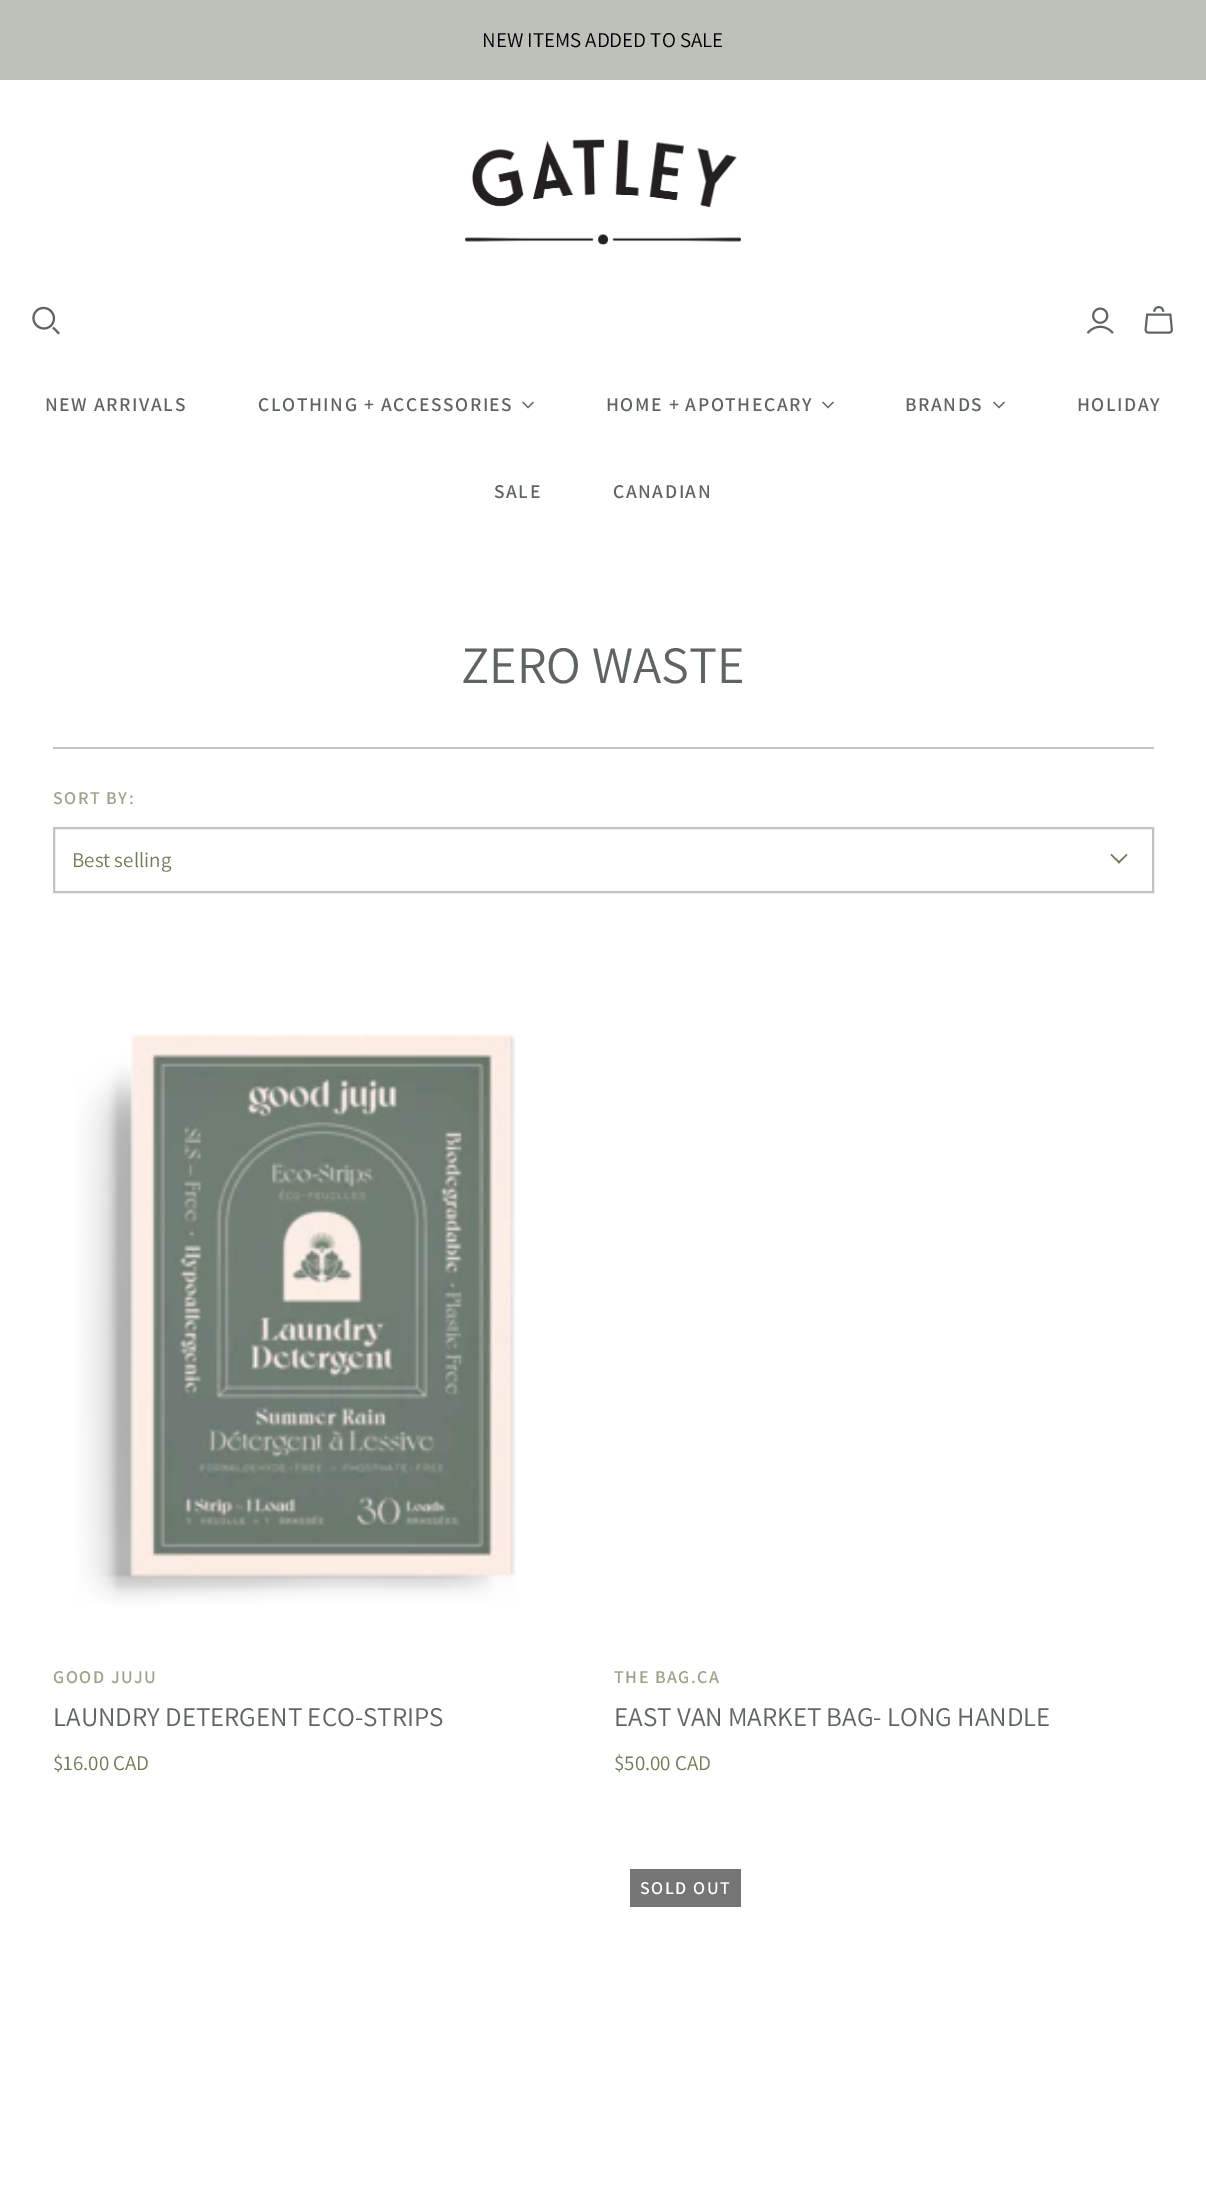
%!PS
<< /PageSize [1206 2194] >> setpagedevice
/mt/moveto load def
/li/lineto load def
/cp/closepath load def
/fl/fill load def
/lw/setlinewidth load def
/co { dup -16 bitshift 255 div exch dup -8 bitshift 255 and 255 div exch 255 and 255 div setrgbcolor } def
/fn { [ exch dup neg 0 0 3 -1 roll 0 0 ] selectfont } def
/tx { co fn moveto show } def
/bx { co rectfill } def
/im { 5 dict begin { /h /w /y /x /name } { exch def } forall
  gsave x y translate w h scale
  w h 8 [w 0 0 h 0 0] name (r) file false 3 colorimage grestore end } def
0 2194 translate 1 -1 scale
4 setmiterlimit
0 0 1206 2194 16#FFFFFF bx
0 0 1206 80 16#BEC1BA bx
(media/1.raw) 465 139 276 106 im
(media/2.raw) 32 306 28 29 im
(media/3.raw) 1086 307 28 27 im
(media/4.raw) 1144 306 29 28 im
(media/5.raw) 522 401 12 8 im
(media/5.raw) 822 401 12 8 im
(media/5.raw) 993 401 12 8 im
53 747 1101 2 16#C6C2C2 bx
2 lw
54 828 1099 64 rectstroke
16#6D7E56 co
1118 862 mt 1126.5 854 li 1127.5 855 li 1119 863.5 li cp fl
1110.5 855 mt 1111.5 854 li 1120 862 li 1119 863.5 li cp fl
(media/6.raw) 76 1034 440 571 im
630 1869 111 38 16#757575 bx
(NEW ITEMS ADDED TO SALE) 482 47 /Assistant-Regular 21 16#000000 tx
/Assistant-SemiBold 19.5 fn
16#5E6464 co
45 411 mt 1.6 0 (NEW ARRIVALS) ashow
258 411 mt 1.6 0 (CLOTHING + ACCESSORIES) ashow
606 411 mt 1.6 0 (HOME + APOTHECARY) ashow
905 411 mt 1.6 0 (BRANDS) ashow
1077 411 mt 1.6 0 (HOLIDAY) ashow
494 498 mt 1.6 0 (SALE) ashow
613 498 mt 1.6 0 (CANADIAN) ashow
(ZERO WASTE) 461 683 /Assistant-Regular 52.5 16#5E6464 tx
/Assistant-SemiBold 18 fn
16#99A589 co
53 804 mt 1.5 0 (SORT BY:) ashow
(Best selling) 72 867 /Assistant-Regular 21 16#6D7E56 tx
/Assistant-SemiBold 18 fn
16#99A589 co
53 1683 mt 1.5 0 (GOOD JUJU) ashow
(LAUNDRY DETERGENT ECO-STRIPS) 53 1726 /Assistant-Regular 27 16#5E6464 tx
($16.00 CAD) 53 1770 /Assistant-Regular 21 16#6D7E56 tx
/Assistant-SemiBold 18 fn
16#99A589 co
614 1683 mt 1.5 0 (THE BAG.CA) ashow
(EAST VAN MARKET BAG- LONG HANDLE) 614 1726 /Assistant-Regular 27 16#5E6464 tx
($50.00 CAD) 614 1770 /Assistant-Regular 21 16#6D7E56 tx
/Assistant-SemiBold 18 fn
16#FFFFFF co
640 1894 mt 1.5 0 (SOLD OUT) ashow
showpage
